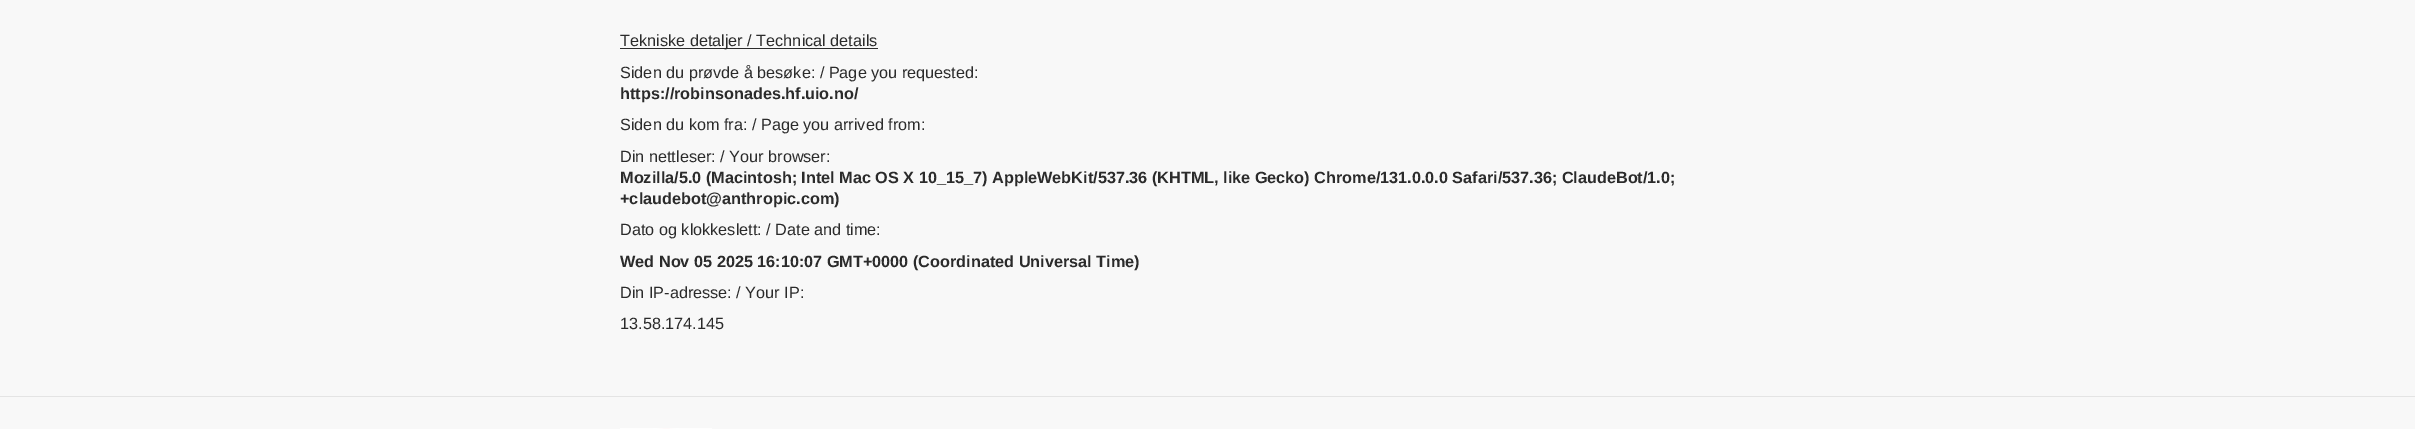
%!PS
<< /PageSize [2415 429] >> setpagedevice
/co { dup -16 bitshift 255 div exch dup -8 bitshift 255 and 255 div exch 255 and 255 div setrgbcolor } def
/fn { [ exch dup neg 0 0 3 -1 roll 0 0 ] selectfont } def
/tx { co fn moveto show } def
/bx { co rectfill } def
/im { 5 dict begin { /h /w /y /x /name } { exch def } forall
  gsave x y translate w h scale
  w h 8 [w 0 0 h 0 0] name (r) file false 3 colorimage grestore end } def
0 429 translate 1 -1 scale
4 setmiterlimit
0 0 2415 429 16#F8F8F8 bx
620 48 258 1 16#2B2B2B bx
0 396 2415 1 16#E4E4E4 bx
(media/1.raw) 620 428 92 1 im
(Tekniske detaljer / Technical details) 620 46 /LiberationSans-Regular 16.25 16#2B2B2B tx
(Siden du prøvde å besøke: / Page you requested:) 620 78 /LiberationSans-Regular 16.25 16#2B2B2B tx
(https://robinsonades.hf.uio.no/) 620 99 /LiberationSans-Bold 16.25 16#2B2B2B tx
(Siden du kom fra: / Page you arrived from:) 620 130 /LiberationSans-Regular 16.25 16#2B2B2B tx
(Din nettleser: / Your browser:) 620 162 /LiberationSans-Regular 16.25 16#2B2B2B tx
(Mozilla/5.0 \(Macintosh; Intel Mac OS X 10_15_7\) AppleWebKit/537.36 \(KHTML, like Gecko\) Chrome/131.0.0.0 Safari/537.36; ClaudeBot/1.0;) 620 183 /LiberationSans-Bold 16.25 16#2B2B2B tx
(+claudebot@anthropic.com\)) 620 204 /LiberationSans-Bold 16.25 16#2B2B2B tx
(Dato og klokkeslett: / Date and time:) 620 235 /LiberationSans-Regular 16.25 16#2B2B2B tx
(Wed Nov 05 2025 16:10:07 GMT+0000 \(Coordinated Universal Time\)) 620 267 /LiberationSans-Bold 16.25 16#2B2B2B tx
(Din IP-adresse: / Your IP:) 620 298 /LiberationSans-Regular 16.25 16#2B2B2B tx
(13.58.174.145) 620 329 /LiberationSans-Regular 16.25 16#2B2B2B tx
showpage
